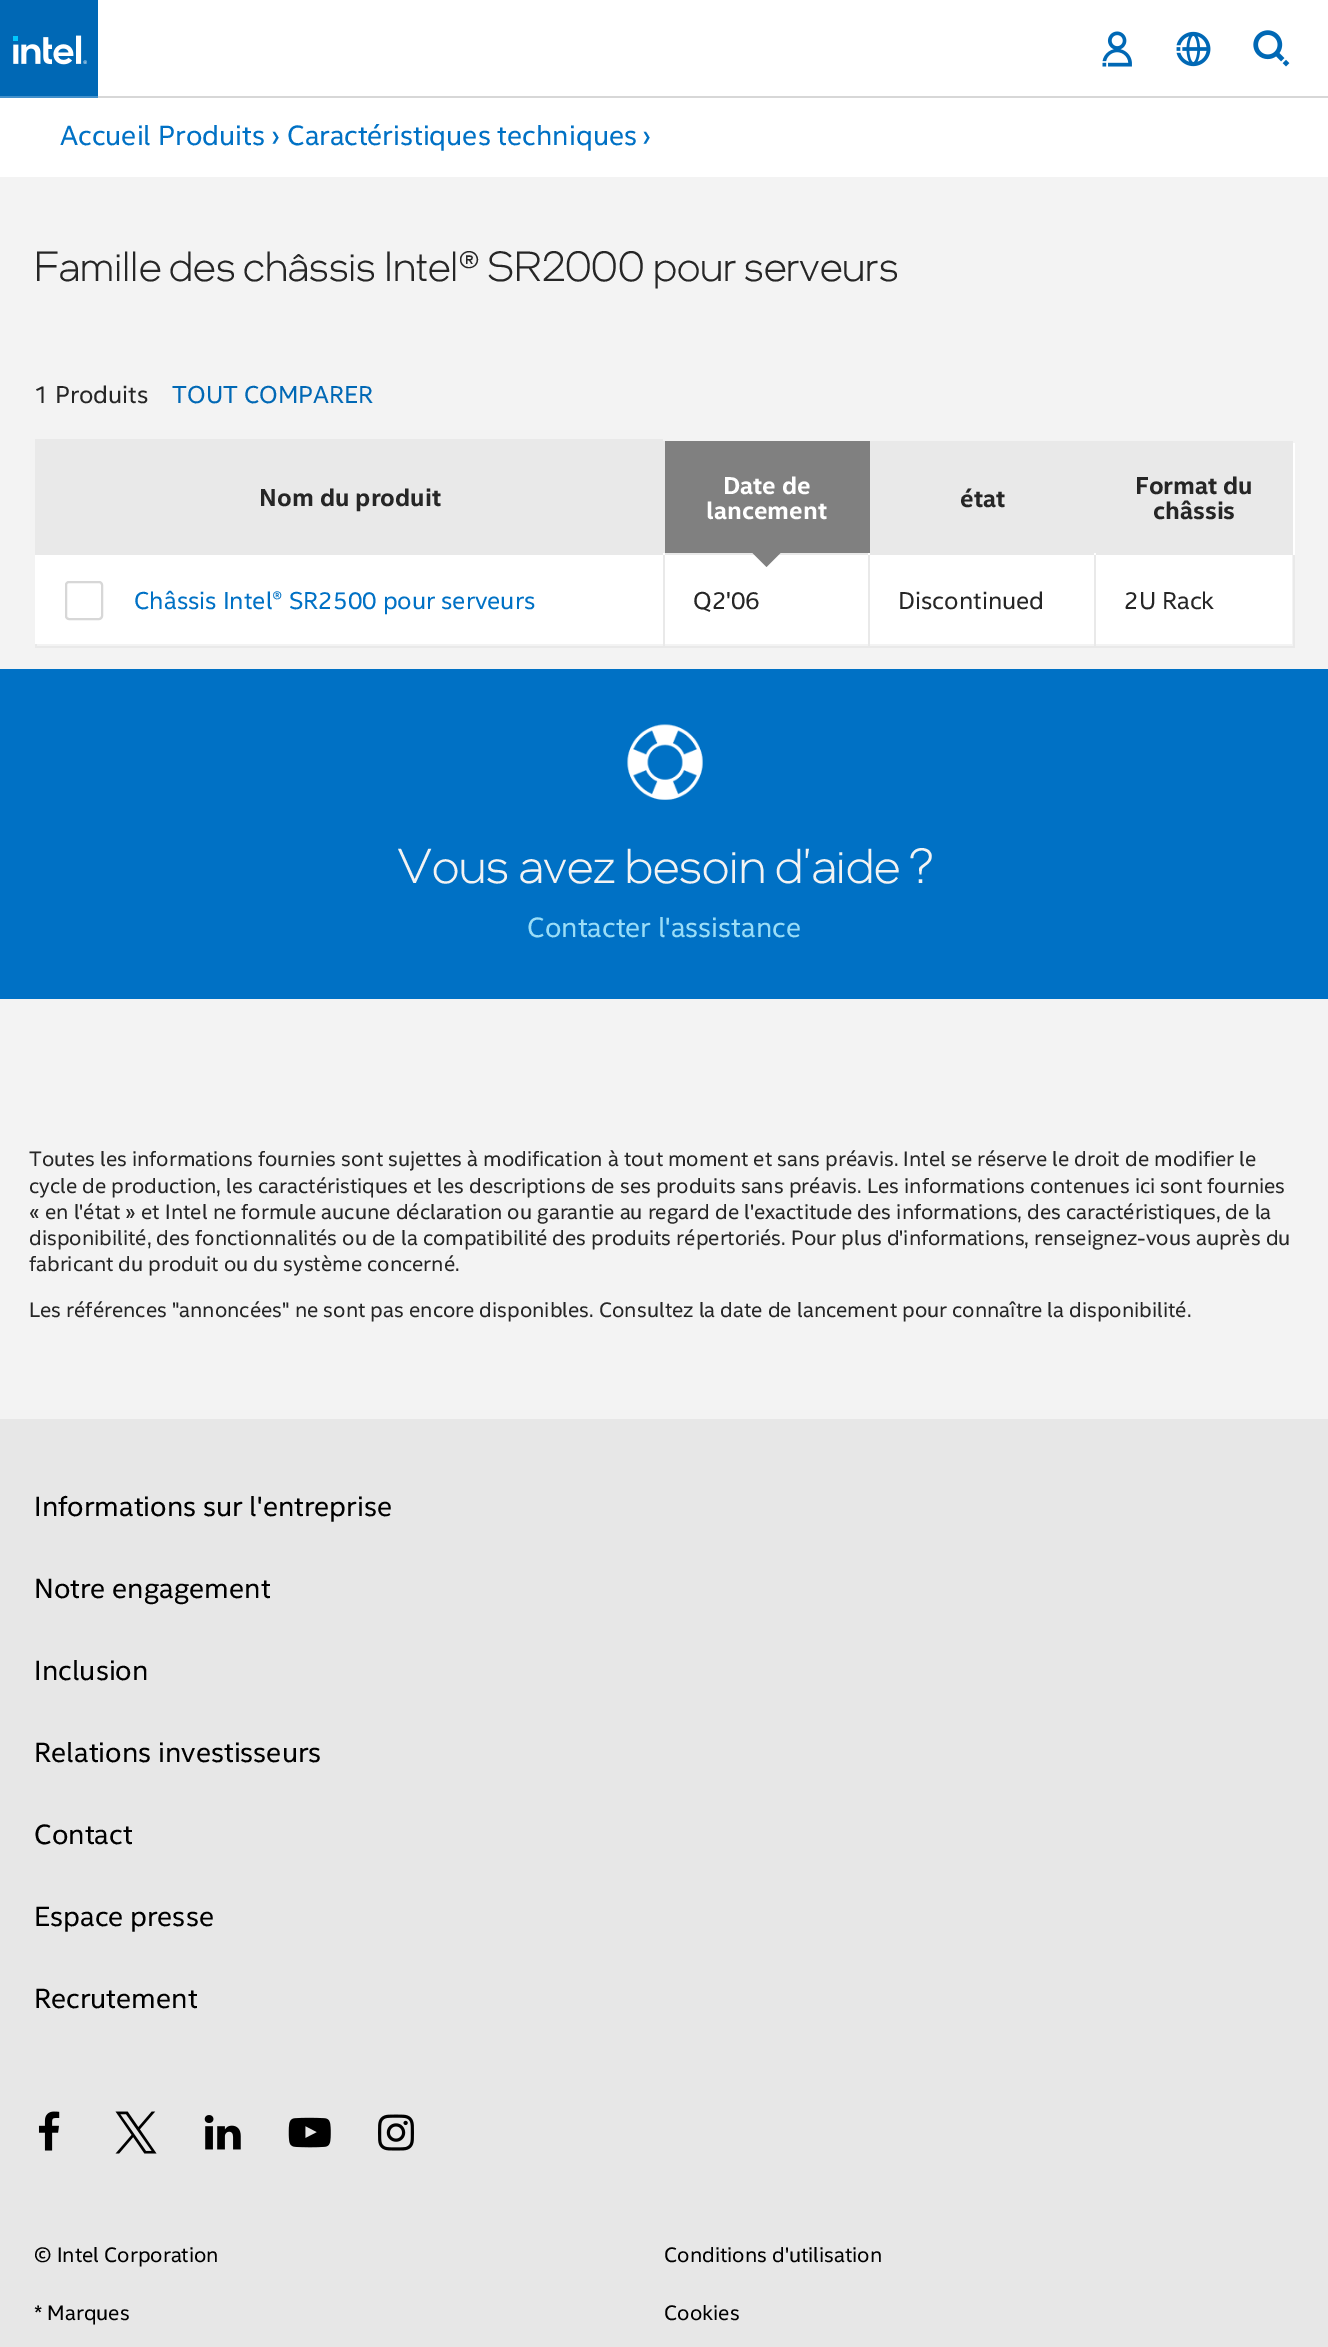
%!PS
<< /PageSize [1328 2347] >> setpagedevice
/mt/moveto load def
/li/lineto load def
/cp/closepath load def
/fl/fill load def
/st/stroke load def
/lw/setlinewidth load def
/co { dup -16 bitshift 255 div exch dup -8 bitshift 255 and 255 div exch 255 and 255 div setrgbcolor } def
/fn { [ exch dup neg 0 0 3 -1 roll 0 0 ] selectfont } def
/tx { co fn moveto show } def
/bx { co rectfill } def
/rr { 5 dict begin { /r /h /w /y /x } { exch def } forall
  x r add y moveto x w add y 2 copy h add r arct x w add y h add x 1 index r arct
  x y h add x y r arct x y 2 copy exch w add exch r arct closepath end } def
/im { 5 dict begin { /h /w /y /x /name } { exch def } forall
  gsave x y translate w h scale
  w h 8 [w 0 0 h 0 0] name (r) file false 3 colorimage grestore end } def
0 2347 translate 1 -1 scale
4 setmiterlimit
0 0 1328 2347 16#FFFFFF bx
98 96 1230 2 16#D7D7D7 bx
0 0 98 96 16#0068B5 bx
(media/1.raw) 13 35 74 30 im
0 96 98 2 16#4290CB bx
(media/2.raw) 1102 31 30 36 im
(media/3.raw) 1176 31 35 36 im
(media/4.raw) 1253 30 37 37 im
0 177 1328 1242 16#F3F3F3 bx
35 439 628 2 16#E9E9E9 bx
1293 555 2 93 16#E9E9E9 bx
35 646 1260 2 16#E9E9E9 bx
35 439 2 209 16#E9E9E9 bx
35 553 1260 2 16#E9E9E9 bx
663 553 2 95 16#E9E9E9 bx
663 553 2 2 16#FFFFFF bx
37 441 628 112 16#E9E9E9 bx
868 553 2 95 16#E9E9E9 bx
868 553 2 2 16#FFFFFF bx
665 441 205 112 16#808080 bx
665 555 203 89 16#FFFFFF bx
16#808080 co
752.5 553 mt 780.5 553 li 766.5 567 li cp fl
1094 553 2 95 16#E9E9E9 bx
1094 553 2 2 16#FFFFFF bx
870 441 423 112 16#E9E9E9 bx
1293 441 2 114 16#FFFFFF bx
1293 441 2 2 16#F3F3F3 bx
35 555 628 89 16#FFFFFF bx
16#D7D7D7 co
2 lw
66 582 36 37 3 rr st
870 555 224 89 16#FFFFFF bx
1096 555 196 89 16#FFFFFF bx
0 669 1328 330 16#0071C5 bx
(media/5.raw) 627 724 76 76 im
0 1419 1328 928 16#E7E7E7 bx
(media/6.raw) 38 2111 22 40 im
(media/7.raw) 115 2111 42 43 im
(media/8.raw) 204 2115 37 35 im
(media/9.raw) 288 2117 43 31 im
(media/10.raw) 378 2114 36 37 im
(Accueil Produits) 60 145 /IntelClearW-Regular 28 16#0071C5 tx
(› Caractéristiques techniques) 271 145 /IntelClearW-Regular 28 16#0071C5 tx
(›) 642 145 /IntelClearW-Regular 28 16#0071C5 tx
(Famille des châssis Intel® SR2000 pour serveurs) 34 281 /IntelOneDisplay-Light 42 16#262626 tx
(1 Produits) 34 403 /IntelClearW-Regular 24.5 16#262626 tx
(TOUT COMPARER) 172 403 /IntelClearW-Regular 24.5 16#0068B5 tx
(Nom du produit) 259 506 /IntelClearW-Bold 24.5 16#262626 tx
(Date de) 723 494 /IntelClearW-Bold 24.5 16#FFFFFF tx
(lancement) 706 519 /IntelClearW-Bold 24.5 16#FFFFFF tx
(état) 960 507 /IntelClearW-Bold 24.5 16#262626 tx
(Format du) 1135 494 /IntelClearW-Bold 24.5 16#262626 tx
(châssis) 1153 519 /IntelClearW-Bold 24.5 16#262626 tx
(Châssis Intel® SR2500 pour serveurs) 134 609 /IntelClearW-Regular 24.5 16#0071C5 tx
(Q2'06) 693 609 /IntelClearW-Regular 24.5 16#262626 tx
(Discontinued) 898 609 /IntelClearW-Regular 24.5 16#262626 tx
(2U Rack) 1124 609 /IntelClearW-Regular 24.5 16#262626 tx
(Vous avez besoin d'aide ?) 397 883 /IntelOneDisplay-Light 49 16#F3F3F3 tx
(Contacter l'assistance) 527 937 /IntelClearW-Regular 28 16#9ADDF7 tx
(Toutes les informations fournies sont sujettes à modification à tout moment et sans préavis. Intel se réserve le droit de modifier le) 29 1166 /IntelClearW-Regular 21 16#262626 tx
(cycle de production, les caractéristiques et les descriptions de ses produits sans préavis. Les informations contenues ici sont fournies) 29 1193 /IntelClearW-Regular 21 16#262626 tx
(« en l'état » et Intel ne formule aucune déclaration ou garantie au regard de l'exactitude des informations, des caractéristiques, de la) 29 1219 /IntelClearW-Regular 21 16#262626 tx
(disponibilité, des fonctionnalités ou de la compatibilité des produits répertoriés. Pour plus d'informations, renseignez-vous auprès du) 29 1245 /IntelClearW-Regular 21 16#262626 tx
(fabricant du produit ou du système concerné.) 29 1271 /IntelClearW-Regular 21 16#262626 tx
(Les références "annoncées" ne sont pas encore disponibles. Consultez la date de lancement pour connaître la disponibilité.) 29 1317 /IntelClearW-Regular 21 16#262626 tx
(Informations sur l'entreprise) 34 1516 /IntelClearW-Regular 28 16#000000 tx
(Notre engagement) 34 1598 /IntelClearW-Regular 28 16#000000 tx
(Inclusion) 34 1680 /IntelClearW-Regular 28 16#000000 tx
(Relations investisseurs) 34 1762 /IntelClearW-Regular 28 16#000000 tx
(Contact) 34 1844 /IntelClearW-Regular 28 16#000000 tx
(Espace presse) 34 1926 /IntelClearW-Regular 28 16#000000 tx
(Recrutement) 34 2008 /IntelClearW-Regular 28 16#000000 tx
(© Intel Corporation) 34 2262 /IntelClearW-Regular 21 16#000000 tx
(Conditions d'utilisation) 664 2262 /IntelClearW-Regular 21 16#000000 tx
(* Marques) 34 2320 /IntelClearW-Regular 21 16#000000 tx
(Cookies) 664 2320 /IntelClearW-Regular 21 16#000000 tx
showpage
